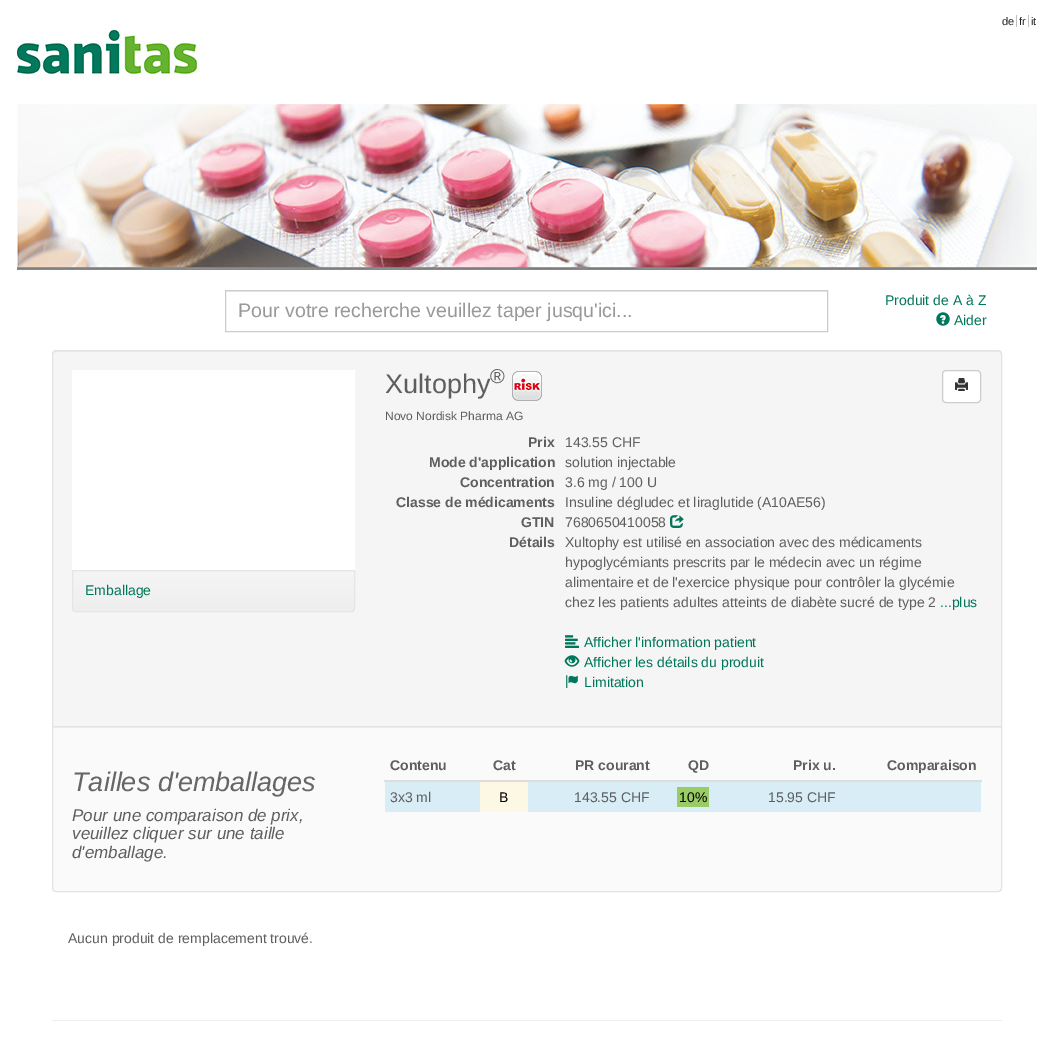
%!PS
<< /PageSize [1053 1038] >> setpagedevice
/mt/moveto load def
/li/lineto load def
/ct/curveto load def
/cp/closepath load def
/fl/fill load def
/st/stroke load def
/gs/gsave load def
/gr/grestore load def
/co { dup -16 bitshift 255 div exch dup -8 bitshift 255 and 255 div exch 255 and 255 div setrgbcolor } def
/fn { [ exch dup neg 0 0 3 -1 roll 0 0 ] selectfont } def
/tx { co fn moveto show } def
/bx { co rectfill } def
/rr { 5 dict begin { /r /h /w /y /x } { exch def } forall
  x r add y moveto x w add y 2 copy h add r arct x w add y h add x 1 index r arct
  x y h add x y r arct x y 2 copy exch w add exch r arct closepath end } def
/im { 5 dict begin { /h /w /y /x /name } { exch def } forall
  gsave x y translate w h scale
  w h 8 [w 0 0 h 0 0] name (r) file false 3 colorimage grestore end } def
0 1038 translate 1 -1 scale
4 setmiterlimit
0 0 1053 1038 16#FFFFFF bx
(media/1.raw) 17 24 1020 246 im
1016 15 1 12 16#BFBFBF bx
1028 15 1 12 16#BFBFBF bx
226 291 601 1 16#ECECEC bx
16#CCCCCC co
225.5 290.5 602 41 rectstroke
(media/2.raw) 936 312 14 14 im
16#F5F5F5 co
52 350 950 380 4 rr fl
16#E9E9E9 co
56 352 mt 998 352 li 1000 352 1001 353 1001 355 ct 1001 353 1000 351 998 351 ct 56 351 li 54 351 53 353 53 355 ct 53 353 54 352 56 352 ct cp fl
16#E3E3E3 co
52.5 350.5 949 379 3.5 rr st
72 370 283 200 16#FFFFFF bx
gs
72 570 mt 355 570 li 355 608 li 355 610 353 612 351 612 ct 76 612 li 74 612 72 610 72 608 ct cp clip newpath
gs 72 571 mt 355 571 li 355 611 li 72 611 li cp clip newpath
<< /ShadingType 2 /ColorSpace /DeviceRGB /Coords [214 571 214 611] /Extend [true true] /Function << /FunctionType 2 /Domain [0 1] /C0 [.961 .961 .961] /C1 [.933 .933 .933] /N 1 >> >> shfill gr
gr
16#E5E5E5 co
72.5 570.5 mt 354.5 570.5 li 354.5 608 li 354.5 610 353 611.5 351 611.5 ct 76 611.5 li 74 611.5 72.5 610 72.5 608 ct cp st
(media/3.raw) 512 371 30 30 im
16#FFFFFF co
942.5 370.5 38 32 3.5 rr gs fl gr
16#CCCCCC co
st
(media/4.raw) 955 378 13 13 im
(media/5.raw) 670 515 14 13 im
(media/6.raw) 565 635 14 13 im
(media/7.raw) 564 655 16 12 im
(media/8.raw) 566 675 12 13 im
16#FAFAFA co
52 726 mt 1002 726 li 1002 888 li 1002 890 1000 892 998 892 ct 56 892 li 54 892 52 890 52 888 ct cp fl
53 727 948 1 16#EEEEEE bx
16#E3E3E3 co
52.5 726.5 mt 1001.5 726.5 li 1001.5 888 li 1001.5 890 1000 891.5 998 891.5 ct 56 891.5 li 54 891.5 52.5 890 52.5 888 ct cp st
384 780 598 2 16#DDDDDD bx
385 782 95 30 16#D9EDF7 bx
480 782 48 30 16#FCF8E3 bx
528 782 453 30 16#D9EDF7 bx
677 787 32 20 16#99CC66 bx
52 1020 950 1 16#EEEEEE bx
(de) 1002 25 /LiberationSans-Regular 11 16#222222 tx
(fr) 1019 25 /LiberationSans-Regular 11 16#222222 tx
(it) 1031 25 /LiberationSans-Regular 11 16#222222 tx
(Pour votre recherche veuillez taper jusqu'ici...) 238 317 /LiberationSans-Regular 19.6 16#999999 tx
(Produit de A à Z) 885 305 /LiberationSans-Regular 14 16#00765A tx
(Aider) 954 325 /LiberationSans-Regular 14 16#00765A tx
(Emballage) 85 595 /LiberationSans-Regular 14 16#00765A tx
(Xultophy) 385 393 /LiberationSans-Regular 27 16#5E5E5E tx
(®) 490 383 /LiberationSans-Regular 20 16#5E5E5E tx
(Novo Nordisk Pharma AG) 385 420 /LiberationSans-Regular 12 16#5E5E5E tx
(Prix) 528 447 /LiberationSans-Bold 14 16#5E5E5E tx
(143.55 CHF) 565 447 /LiberationSans-Regular 14 16#5E5E5E tx
(Mode d'application) 429 467 /LiberationSans-Bold 14 16#5E5E5E tx
(solution injectable) 565 467 /LiberationSans-Regular 14 16#5E5E5E tx
(Concentration) 460 487 /LiberationSans-Bold 14 16#5E5E5E tx
(3.6 mg / 100 U) 565 487 /LiberationSans-Regular 14 16#5E5E5E tx
(Classe de médicaments) 396 507 /LiberationSans-Bold 14 16#5E5E5E tx
(Insuline dégludec et liraglutide \(A10AE56\)) 565 507 /LiberationSans-Regular 14 16#5E5E5E tx
(GTIN) 521 527 /LiberationSans-Bold 14 16#5E5E5E tx
(7680650410058) 565 527 /LiberationSans-Regular 14 16#5E5E5E tx
(Détails) 509 547 /LiberationSans-Bold 14 16#5E5E5E tx
(Xultophy est utilisé en association avec des médicaments) 565 547 /LiberationSans-Regular 14 16#5E5E5E tx
(hypoglycémiants prescrits par le médecin avec un régime) 565 567 /LiberationSans-Regular 14 16#5E5E5E tx
(alimentaire et de l'exercice physique pour contrôler la glycémie) 565 587 /LiberationSans-Regular 14 16#5E5E5E tx
(chez les patients adultes atteints de diabète sucré de type 2) 565 607 /LiberationSans-Regular 14 16#5E5E5E tx
(...plus) 940 607 /LiberationSans-Regular 14 16#00765A tx
(Afficher l'information patient) 584 647 /LiberationSans-Regular 14 16#00765A tx
(Afficher les détails du produit) 584 667 /LiberationSans-Regular 14 16#00765A tx
(Limitation) 584 687 /LiberationSans-Regular 14 16#00765A tx
(Tailles d'emballages) 72 791 /LiberationSans-Italic 27 16#666666 tx
(Pour une comparaison de prix,) 72 821 /LiberationSans-Italic 17 16#5E5E5E tx
(veuillez cliquer sur une taille) 72 839 /LiberationSans-Italic 17 16#5E5E5E tx
(d'emballage.) 72 858 /LiberationSans-Italic 17 16#5E5E5E tx
(Contenu) 390 770 /LiberationSans-Bold 14 16#5E5E5E tx
(Cat) 493 770 /LiberationSans-Bold 14 16#5E5E5E tx
(PR courant) 575 770 /LiberationSans-Bold 14 16#5E5E5E tx
(QD) 688 770 /LiberationSans-Bold 14 16#5E5E5E tx
(Prix u.) 793 770 /LiberationSans-Bold 14 16#5E5E5E tx
(Comparaison) 887 770 /LiberationSans-Bold 14 16#5E5E5E tx
(3x3 ml) 390 802 /LiberationSans-Regular 14 16#5E5E5E tx
(B) 499 802 /LiberationSans-Regular 14 16#000000 tx
(143.55 CHF) 574 802 /LiberationSans-Regular 14 16#5E5E5E tx
(10%) 679 802 /LiberationSans-Regular 14 16#000000 tx
(15.95 CHF) 768 802 /LiberationSans-Regular 14 16#5E5E5E tx
(Aucun produit de remplacement trouvé.) 68 943 /LiberationSans-Regular 14 16#5E5E5E tx
showpage
